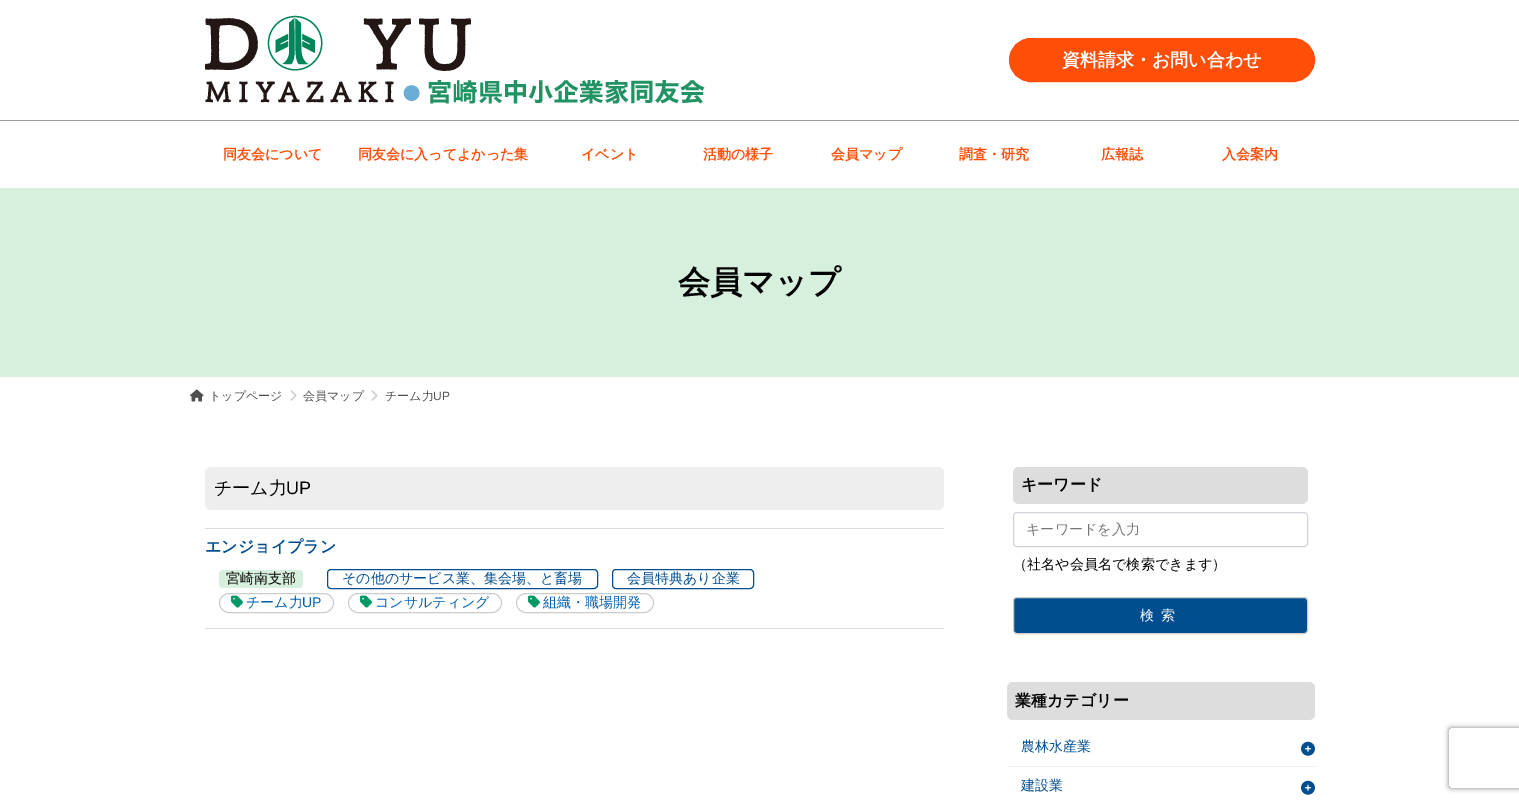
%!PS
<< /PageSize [1519 802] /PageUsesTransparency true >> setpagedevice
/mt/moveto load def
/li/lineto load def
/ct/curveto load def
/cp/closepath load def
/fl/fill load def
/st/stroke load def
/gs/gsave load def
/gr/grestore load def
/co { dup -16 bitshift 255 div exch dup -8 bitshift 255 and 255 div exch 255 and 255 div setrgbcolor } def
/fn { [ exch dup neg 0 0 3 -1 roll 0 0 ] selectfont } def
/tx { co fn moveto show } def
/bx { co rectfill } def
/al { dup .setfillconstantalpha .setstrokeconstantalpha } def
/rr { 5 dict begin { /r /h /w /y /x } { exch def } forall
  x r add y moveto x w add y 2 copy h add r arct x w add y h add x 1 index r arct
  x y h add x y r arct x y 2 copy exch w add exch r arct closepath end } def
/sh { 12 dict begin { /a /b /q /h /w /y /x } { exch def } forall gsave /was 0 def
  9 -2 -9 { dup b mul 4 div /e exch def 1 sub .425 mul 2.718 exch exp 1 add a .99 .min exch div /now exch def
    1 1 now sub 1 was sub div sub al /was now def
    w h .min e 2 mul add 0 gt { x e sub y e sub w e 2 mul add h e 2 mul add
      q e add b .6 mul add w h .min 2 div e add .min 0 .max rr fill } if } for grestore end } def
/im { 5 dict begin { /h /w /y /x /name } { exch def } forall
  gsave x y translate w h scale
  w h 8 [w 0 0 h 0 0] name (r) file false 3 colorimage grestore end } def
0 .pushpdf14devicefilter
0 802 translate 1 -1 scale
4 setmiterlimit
0 0 1519 802 16#FFFFFF bx
(media/1.raw) 205 15 500 89 im
16#FF4E08 co
1009.5 38.5 305 43 21.5 rr gs fl gr
st
0 120 1519 1 16#9B9B9B bx
0 188 1519 189 16#D7EFDD bx
(media/2.raw) 190 389 14 13 im
(media/3.raw) 290 390 7 11 im
(media/3.raw) 371 390 7 11 im
16#EEEEEE co
205 467 739 43 6 rr fl
205 528 739 1 16#DDDDDD bx
205 628 739 1 16#DDDDDD bx
16#D7EFDD co
219 570 84 18 4 rr fl
16#004D90 co
327.5 569.5 270 19 3.5 rr st
612.5 569.5 141 19 3.5 rr st
16#CCCCCC co
219.5 593.5 114 19 9.5 rr st
(media/4.raw) 231 595 12 13 im
348.5 593.5 153 19 9.5 rr st
(media/4.raw) 360 595 12 13 im
516.5 593.5 137 19 9.5 rr st
(media/4.raw) 528 595 12 13 im
16#DDDDDD co
1013 467 295 37 6 rr fl
16#CED4DA co
1013.5 512.5 294 34 3.5 rr st
16#004D90 co
1013.5 597.5 294 36 3.5 rr gs fl gr
16#CCCCCC co
st
16#DDDDDD co
1007 682 308 38 6 rr fl
1007 766 308 1 16#F0F0F0 bx
(media/5.raw) 1301 741 14 15 im
(media/5.raw) 1301 780 14 15 im
gs
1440 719 mt 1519 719 li 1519 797 li 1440 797 li cp 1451 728 mt 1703 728 li 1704 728 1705 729 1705 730 ct 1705 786 li 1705 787 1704 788 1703 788 ct 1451 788 li 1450 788 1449 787 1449 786 ct 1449 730 li 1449 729 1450 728 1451 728 ct cp eoclip newpath
16#808080 co
1449 728 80 60 2 2.5 1 sh
gr
(資料請求・お問い合わせ) 1062 66 /WenQuanYiZenHei-Bold 18 16#FFFFFF tx
(同友会について) 223 159 /WenQuanYiZenHei-Bold 14 16#FF4E08 tx
(同友会に入ってよかった集) 358 159 /WenQuanYiZenHei-Bold 14 16#FF4E08 tx
(イベント) 581 159 /WenQuanYiZenHei-Bold 14 16#FF4E08 tx
(活動の様子) 703 159 /WenQuanYiZenHei-Bold 14 16#FF4E08 tx
(会員マップ) 831 159 /WenQuanYiZenHei-Bold 14 16#FF4E08 tx
(調査・研究) 959 159 /WenQuanYiZenHei-Bold 14 16#FF4E08 tx
(広報誌) 1101 159 /WenQuanYiZenHei-Bold 14 16#FF4E08 tx
(入会案内) 1222 159 /WenQuanYiZenHei-Bold 14 16#FF4E08 tx
(会員マップ) 678 293 /WenQuanYiZenHei-Bold 32 16#000000 tx
(トップページ) 209 400 /WenQuanYiZenHei-Medium 12 16#504F4F tx
(会員マップ) 303 400 /WenQuanYiZenHei-Medium 12 16#504F4F tx
(チーム力) 385 400 /WenQuanYiZenHei-Medium 12 16#504F4F tx
(UP) 433 400 /LiberationSans-Regular 12 16#504F4F tx
(チーム力) 214 494 /WenQuanYiZenHei-Medium 18 16#000000 tx
(UP) 286 494 /LiberationSans-Regular 18 16#000000 tx
(エンジョイプラン) 205 552 /WenQuanYiZenHei-Bold 16 16#004D90 tx
(宮崎南支部) 226 583 /WenQuanYiZenHei-Medium 14 16#000000 tx
(その他のサービス業、集会場、と畜場) 342 583 /WenQuanYiZenHei-Medium 14 16#004D90 tx
(会員特典あり企業) 627 583 /WenQuanYiZenHei-Medium 14 16#004D90 tx
(チーム力) 246 607 /WenQuanYiZenHei-Medium 14 16#005FB2 tx
(UP) 302 607 /LiberationSans-Regular 14 16#005FB2 tx
(コンサルティング) 375 607 /WenQuanYiZenHei-Medium 14 16#005FB2 tx
(組織・職場開発) 543 607 /WenQuanYiZenHei-Medium 14 16#005FB2 tx
(キーワード) 1021 490 /WenQuanYiZenHei-Bold 16 16#000000 tx
(キーワードを入力) 1026 534 /WenQuanYiZenHei-Medium 14.1 16#757575 tx
(（社名や会員名で検索できます）) 1013 569 /WenQuanYiZenHei-Medium 14.1 16#000000 tx
/WenQuanYiZenHei-Medium 14 fn
16#FFFFFF co
1140 620 mt 7 0 (検索) ashow
(業種カテゴリー) 1015 706 /WenQuanYiZenHei-Bold 16 16#000000 tx
(農林水産業) 1021 751 /WenQuanYiZenHei-Medium 14 16#004D90 tx
(建設業) 1021 790 /WenQuanYiZenHei-Medium 14 16#004D90 tx
.poppdf14devicefilter showpage
